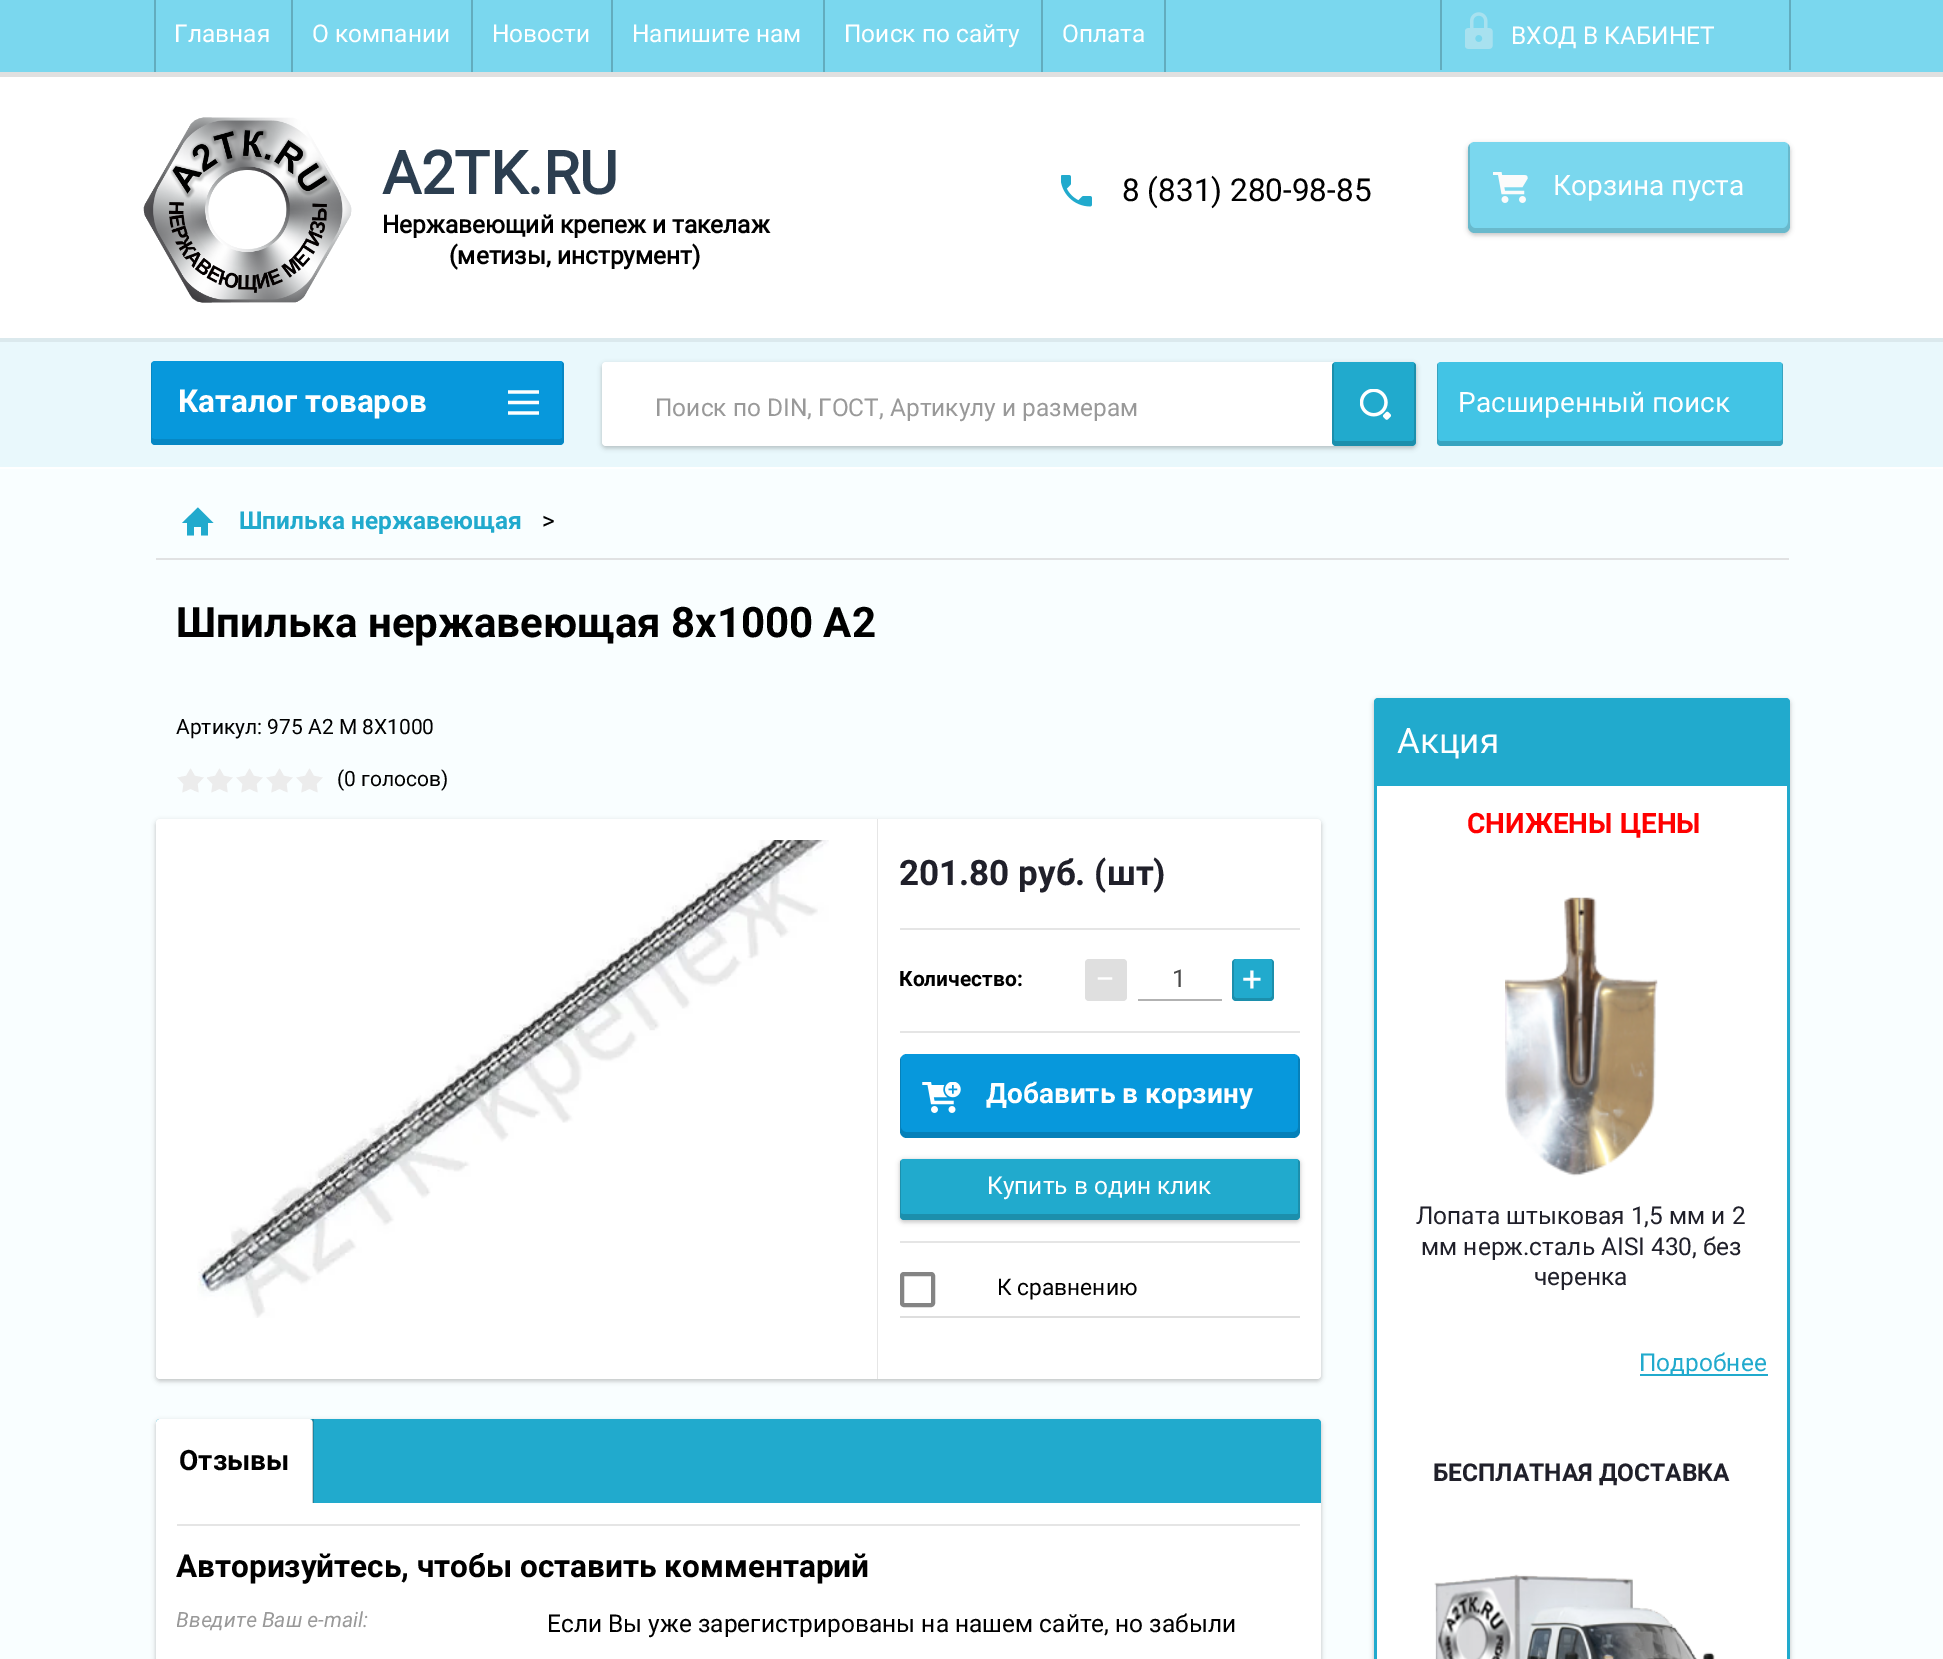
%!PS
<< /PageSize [1943 1659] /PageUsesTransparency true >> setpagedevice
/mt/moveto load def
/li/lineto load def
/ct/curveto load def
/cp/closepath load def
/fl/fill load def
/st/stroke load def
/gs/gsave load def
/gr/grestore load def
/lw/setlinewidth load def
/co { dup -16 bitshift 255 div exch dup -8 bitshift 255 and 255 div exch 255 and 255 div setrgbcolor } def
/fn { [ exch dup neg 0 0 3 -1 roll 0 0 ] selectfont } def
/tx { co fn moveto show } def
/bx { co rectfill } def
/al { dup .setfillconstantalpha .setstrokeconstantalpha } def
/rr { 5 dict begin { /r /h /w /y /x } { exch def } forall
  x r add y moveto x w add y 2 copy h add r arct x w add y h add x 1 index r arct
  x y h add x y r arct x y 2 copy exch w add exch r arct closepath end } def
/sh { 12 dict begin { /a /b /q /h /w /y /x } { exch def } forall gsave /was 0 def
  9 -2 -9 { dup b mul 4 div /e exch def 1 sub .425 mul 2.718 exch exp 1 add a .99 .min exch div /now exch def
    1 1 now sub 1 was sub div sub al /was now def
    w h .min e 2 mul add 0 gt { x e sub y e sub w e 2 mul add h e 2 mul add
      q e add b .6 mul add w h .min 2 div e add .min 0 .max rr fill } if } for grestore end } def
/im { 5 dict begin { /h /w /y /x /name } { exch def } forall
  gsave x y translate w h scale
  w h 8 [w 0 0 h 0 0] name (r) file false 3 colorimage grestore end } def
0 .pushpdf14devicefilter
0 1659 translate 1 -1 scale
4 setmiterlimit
0 0 1943 1659 16#F9FEFF bx
0 77 1943 261 16#FFFFFF bx
0 72 1943 5 16#E0E0E0 bx
0 0 1943 72 16#7AD7EE bx
154 0 2 72 16#62ACBE bx
291 0 2 72 16#62ACBE bx
471 0 2 72 16#62ACBE bx
611 0 2 72 16#62ACBE bx
823 0 2 72 16#62ACBE bx
1041 0 2 72 16#62ACBE bx
1164 0 2 72 16#62ACBE bx
1440 0 2 70 16#62ACBE bx
(media/1.raw) 1465 12 28 37 im
1789 0 2 70 16#62ACBE bx
(media/2.raw) 143 117 209 186 im
(media/3.raw) 1061 175 31 32 im
16#000000 co
1468 144 322 91 7 2.5 .24 sh
16#7AD7EE co
1468 142 322 91 7 rr fl
0.14 al
16#000000 co
1470 144 mt 1469 145 1468 147 1468 149 ct 1468 226 li 1468 230 1471 233 1475 233 ct 1783 233 li 1787 233 1790 230 1790 226 ct 1790 149 li 1790 147 1789 145 1788 144 ct 1788 222 li 1788 225 1786 228 1783 228 ct 1475 228 li 1472 228 1470 225 1470 222 ct cp fl
1 al
(media/4.raw) 1493 172 35 31 im
0 467 1943 2 16#FFFFFF bx
0 342 1943 125 16#E9F8FC bx
0 338 1943 4 16#DBE9ED bx
16#0798DC co
151 361 413 84 4 rr fl
0.11 al
16#000000 co
152 362 mt 151 363 151 364 151 365 ct 151 441 li 151 443 153 445 155 445 ct 560 445 li 562 445 564 443 564 441 ct 564 365 li 564 364 563 362 562 362 ct 562 438 li 560 439 li 154 439 li 152 438 li cp fl
1 al
(media/5.raw) 508 390 31 25 im
1374 700 416 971 4 2.5 .24 sh
16#21AACD co
1374 698 416 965 4 rr fl
1377 786 410 873 16#FFFFFF bx
(media/6.raw) 1505 897 153 280 im
1640 1374 128 2 16#21AACD bx
(media/7.raw) 1434 1574 281 85 im
16#000000 co
602 364 814 84 4 2.5 .24 sh
16#FFFFFF co
602 362 814 84 4 rr fl
16#21AACD co
1332 362 84 84 4 rr fl
0.16 al
16#000000 co
1334 363 mt 1333 363 1332 365 1332 366 ct 1332 442 li 1332 444 1334 446 1336 446 ct 1412 446 li 1414 446 1416 444 1416 442 ct 1416 366 li 1416 365 1415 363 1414 363 ct 1414 439 li 1414 440 1413 441 1412 441 ct 1335 441 li 1334 441 1334 440 1334 439 ct cp fl
1 al
(media/8.raw) 1360 389 31 31 im
16#42C4E5 co
1437 362 346 84 4 rr fl
0.16 al
16#000000 co
1438 363 mt 1437 364 1437 365 1437 366 ct 1437 442 li 1437 444 1439 446 1441 446 ct 1779 446 li 1781 446 1783 444 1783 442 ct 1783 366 li 1783 365 1783 364 1782 363 ct 1782 439 li 1782 440 1781 441 1780 441 ct 1440 441 li 1439 441 1438 440 1438 439 ct cp fl
1 al
156 558 1633 2 16#E1E2E3 bx
16#21AACD co
208 523 mt 208 535.5 li 201 535.5 li 201 527 li 194 527 li 194 535.5 li 187 535.5 li 187 523 li 182 523 li 198 507.5 li 213.5 523 li cp eofill
(media/9.raw) 177 768 146 25 im
16#000000 co
156 821 1165 560 4 2.5 .24 sh
16#FFFFFF co
156 819 1165 560 4 rr fl
(media/10.raw) 197 840 632 478 im
877 819 1 560 16#E6E6E6 bx
900 928 400 2 16#E5E5E5 bx
900 1031 400 2 16#E5E5E5 bx
16#DFDFDF co
1085 959 42 42 4 rr fl
1138 999 84 2 16#B2B2B2 bx
16#21AACD co
1232 959 42 42 4 rr fl
0.16 al
16#000000 co
1236 959 mt 1234 959 1232 961 1232 963 ct 1232 997 li 1232 999 1234 1001 1236 1001 ct 1270 1001 li 1272 1001 1274 999 1274 997 ct 1274 963 li 1274 961 1272 959 1270 959 ct 1271 959 1272 960 1272 961 ct 1272 996 li 1272 997 1271 998 1270 998 ct 1236 998 li 1235 998 1234 997 1234 996 ct 1234 961 li 1234 960 1235 959 1236 959 ct cp fl
1 al
16#0798DC co
900 1054 400 84 7 rr fl
0.16 al
16#000000 co
901 1057 mt 900 1058 900 1060 900 1061 ct 900 1131 li 900 1135 903 1138 907 1138 ct 1293 1138 li 1297 1138 1300 1135 1300 1131 ct 1300 1061 li 1300 1059 1299 1057 1298 1056 ct 1298 1127 li 1298 1130 1296 1132 1293 1132 ct 906 1132 li 904 1132 901 1130 901 1127 ct cp fl
1 al
(media/11.raw) 922 1082 39 31 im
900 1160 400 62 4 2.5 .24 sh
16#21AACD co
900 1159 400 61 4 rr fl
0.16 al
16#000000 co
901 1160 mt 900 1161 900 1162 900 1163 ct 900 1216 li 900 1218 902 1220 904 1220 ct 1296 1220 li 1298 1220 1300 1218 1300 1216 ct 1300 1163 li 1300 1162 1299 1160 1298 1160 ct 1298 1213 li 1298 1214 1298 1214 1297 1214 ct 903 1214 li 902 1214 901 1214 901 1213 ct cp fl
1 al
900 1241 400 2 16#E5E5E5 bx
900 1316 400 2 16#DEDEDE bx
16#848484 co
4 lw
902 1274 31 31 2 rr st
16#000000 co
156 1421 1165 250 4 2.5 .24 sh
16#21AACD co
156 1419 1165 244 4 rr fl
16#FFFFFF co
160 1419 mt 309 1419 li 311 1419 313 1421 313 1423 ct 313 1503 li 156 1503 li 156 1423 li 156 1421 158 1419 160 1419 ct cp fl
0.2 al
312 1419 2 84 16#000000 bx
1 al
156 1503 1165 156 16#FFFFFF bx
177 1524 1123 2 16#E5E5E5 bx
(Главная) 174 42 /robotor-Regular 24.5 16#FFFFFF tx
(О компании) 312 42 /robotor-Regular 24.5 16#FFFFFF tx
(Новости) 492 42 /robotor-Regular 24.5 16#FFFFFF tx
(Напишите нам) 632 42 /robotor-Regular 24.5 16#FFFFFF tx
(Поиск по сайту) 844 42 /robotor-Regular 24.5 16#FFFFFF tx
(Оплата) 1062 42 /robotor-Regular 24.5 16#FFFFFF tx
(ВХОД В КАБИНЕТ) 1511 44 /robotor-Regular 24.5 16#FFFFFF tx
(A2TK.RU) 382 194 /robotor-Bold 59.5 16#2C3E50 tx
(Нержавеющий крепеж и такелаж) 382 233 /robotor-Bold 24.5 16#000000 tx
(\(метизы, инструмент\)) 449 264 /robotor-Bold 24.5 16#000000 tx
(8 \(831\) 280-98-85) 1122 201 /robotor-Regular 31.5 16#000000 tx
(Корзина пуста) 1553 195 /robotor-Regular 28 16#FFFFFF tx
(Каталог товаров) 178 412 /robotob-Bold 31.5 16#FFFFFF tx
(Акция) 1397 753 /robotor-Regular 35 16#FFFFFF tx
(СНИЖЕНЫ ЦЕНЫ) 1467 833 /robotob-Bold 28 16#FF0000 tx
(Лопата штыковая 1,5 мм и 2) 1416 1224 /robotor-Regular 24.5 16#20202A tx
(мм нерж.сталь AISI 430, без) 1421 1255 /robotor-Regular 24.5 16#20202A tx
(черенка) 1534 1285 /robotor-Regular 24.5 16#20202A tx
(Подробнее) 1639 1371 /robotor-Regular 24.5 16#21AACD tx
(БЕСПЛАТНАЯ ДОСТАВКА) 1433 1481 /robotob-Bold 24.5 16#20202A tx
(Поиск по DIN, ГОСТ, Артикулу и размерам) 655 416 /robotor-Regular 24.5 16#999999 tx
(Расширенный поиск) 1458 412 /robotor-Regular 28 16#FFFFFF tx
(Шпилька нержавеющая) 239 529 /robotob-Bold 24.5 16#21AACD tx
(>) 542 529 /robotor-Regular 24.5 16#000000 tx
(Шпилька нержавеющая 8х1000 А2) 176 637 /robotob-Bold 42 16#000000 tx
(Артикул: 975 A2 M 8Х1000) 176 734 /robotor-Regular 21 16#000000 tx
(\(0 голосов\)) 337 786 /robotor-Regular 21 16#000000 tx
(201.80 руб. \(шт\)) 899 885 /robotob-Bold 35 16#20202A tx
(Количество:) 899 986 /robotob-Bold 21 16#000000 tx
(−) 1095 991 /robotor-Regular 35 16#FFFFFF tx
(1) 1172 987 /robotor-Regular 24.5 16#484848 tx
(+) 1242 991 /robotor-Regular 35 16#FFFFFF tx
(Добавить в корзину) 986 1103 /robotob-Bold 28 16#FFFFFF tx
(Купить в один клик) 987 1194 /robotor-Regular 24.5 16#FFFFFF tx
(К сравнению) 997 1295 /robotor-Regular 22.75 16#000000 tx
(Отзывы) 179 1470 /robotob-Bold 28 16#000000 tx
(Авторизуйтесь, чтобы оставить комментарий) 176 1577 /robotob-Bold 31.5 16#000000 tx
gs
177 1608 1123 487 rectclip
(Введите Ваш e-mail:) 176 1627 /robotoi-Italic 21 16#999999 tx
gr
(Если Вы уже зарегистрированы на нашем сайте, но забыли) 547 1632 /robotor-Regular 24.5 16#000000 tx
.poppdf14devicefilter showpage
